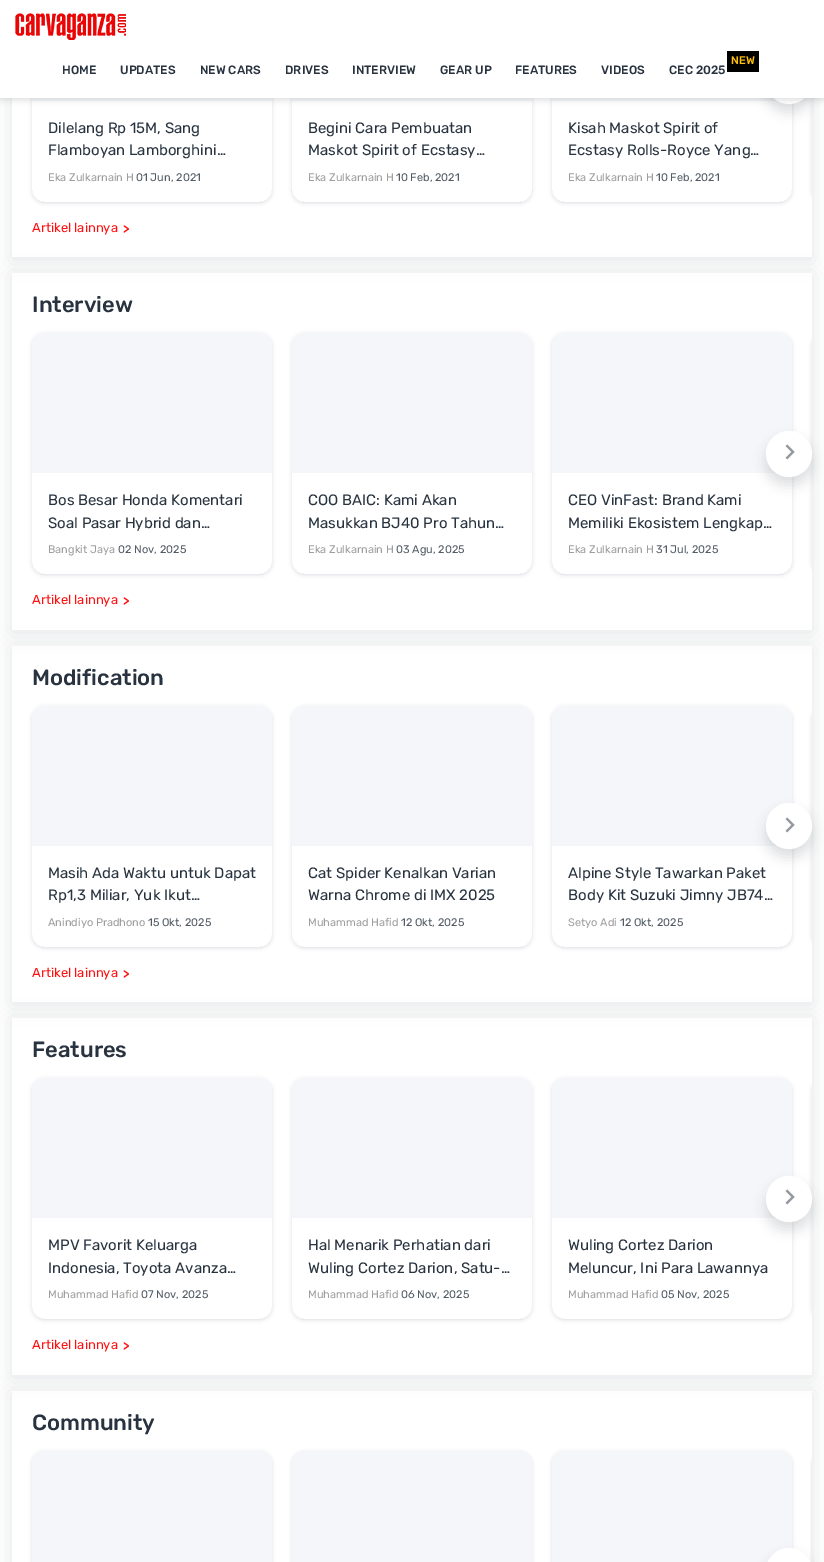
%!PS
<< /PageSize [824 1562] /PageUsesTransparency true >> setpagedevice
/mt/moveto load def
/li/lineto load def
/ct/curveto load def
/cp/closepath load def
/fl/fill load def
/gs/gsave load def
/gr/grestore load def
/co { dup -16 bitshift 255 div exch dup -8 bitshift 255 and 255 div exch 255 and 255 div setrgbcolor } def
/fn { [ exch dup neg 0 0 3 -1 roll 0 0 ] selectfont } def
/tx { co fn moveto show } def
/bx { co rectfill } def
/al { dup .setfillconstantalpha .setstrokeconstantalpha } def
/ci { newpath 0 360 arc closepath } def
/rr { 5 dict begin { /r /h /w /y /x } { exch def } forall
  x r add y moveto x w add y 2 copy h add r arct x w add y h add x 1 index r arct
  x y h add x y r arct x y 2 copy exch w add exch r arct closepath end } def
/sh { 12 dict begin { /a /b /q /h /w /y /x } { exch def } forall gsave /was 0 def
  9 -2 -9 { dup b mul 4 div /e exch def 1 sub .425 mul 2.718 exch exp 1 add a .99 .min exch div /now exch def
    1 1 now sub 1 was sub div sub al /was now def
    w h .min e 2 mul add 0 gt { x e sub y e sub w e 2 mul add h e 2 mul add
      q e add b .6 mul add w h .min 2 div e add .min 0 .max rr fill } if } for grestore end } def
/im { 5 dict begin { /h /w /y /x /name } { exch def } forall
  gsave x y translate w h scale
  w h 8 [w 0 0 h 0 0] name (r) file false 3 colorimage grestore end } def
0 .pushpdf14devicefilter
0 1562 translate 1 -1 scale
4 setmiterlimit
0 0 824 1562 16#FFFFFF bx
gs
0 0 mt 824 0 li 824 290 li 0 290 li cp 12 -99 mt 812 -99 li 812 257 li 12 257 li cp eoclip newpath
16#28333F co
12 -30 800 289 0 10 .12 sh
gr
gs
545 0 mt 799 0 li 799 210 li 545 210 li cp 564 -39 mt 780 -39 li 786.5 -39 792 -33.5 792 -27 ct 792 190 li 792 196.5 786.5 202 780 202 ct 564 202 li 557.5 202 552 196.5 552 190 ct 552 -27 li 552 -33.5 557.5 -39 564 -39 ct cp eoclip newpath
16#28333F co
552 -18 240 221 12 2 .16 sh
gr
0.5 al
552 -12 240 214 12 rr fl
1 al
552 98 226 3 16#F4F6F9 bx
16#24272C co
766 66 46 46 23 6 .15 sh
gs
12 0 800 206 rectclip
16#28333F co
812 -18 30 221 12 2 .16 sh
gr
16#FFFFFF co
789 81 23 ci fl
gs
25 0 mt 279 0 li 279 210 li 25 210 li cp 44 -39 mt 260 -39 li 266.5 -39 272 -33.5 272 -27 ct 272 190 li 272 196.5 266.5 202 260 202 ct 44 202 li 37.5 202 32 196.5 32 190 ct 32 -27 li 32 -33.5 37.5 -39 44 -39 ct cp eoclip newpath
16#28333F co
32 -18 240 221 12 2 .16 sh
gr
0.5 al
32 -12 240 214 12 rr fl
1 al
32 98 240 3 16#F4F6F9 bx
gs
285 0 mt 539 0 li 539 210 li 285 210 li cp 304 -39 mt 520 -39 li 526.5 -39 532 -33.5 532 -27 ct 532 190 li 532 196.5 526.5 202 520 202 ct 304 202 li 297.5 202 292 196.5 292 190 ct 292 -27 li 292 -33.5 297.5 -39 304 -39 ct cp eoclip newpath
16#28333F co
292 -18 240 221 12 2 .16 sh
gr
0.5 al
16#FFFFFF co
292 -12 240 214 12 rr fl
1 al
292 98 240 3 16#F4F6F9 bx
16#24272C co
0 2 824 98 0 3 .15 sh
0 0 824 98 16#FFFFFF bx
(media/1.raw) 15 13 111 27 im
727 51 32 21 16#000000 bx
gs
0 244 mt 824 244 li 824 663 li 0 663 li cp 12 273 mt 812 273 li 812 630 li 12 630 li cp eoclip newpath
16#28333F co
12 275 800 357 0 10 .12 sh
gr
gs
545 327 mt 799 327 li 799 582 li 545 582 li cp 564 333 mt 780 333 li 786.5 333 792 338.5 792 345 ct 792 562 li 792 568.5 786.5 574 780 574 ct 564 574 li 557.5 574 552 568.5 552 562 ct 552 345 li 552 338.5 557.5 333 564 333 ct cp eoclip newpath
16#28333F co
552 334 240 241 12 2 .16 sh
gr
0.5 al
16#FFFFFF co
552 333 240 241 12 rr fl
1 al
16#F4F6F9 co
564 333 mt 780 333 li 786.5 333 792 338.5 792 345 ct 792 473 li 552 473 li 552 345 li 552 338.5 557.5 333 564 333 ct cp fl
16#24272C co
766 439 46 46 23 6 .15 sh
gs
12 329 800 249 rectclip
16#28333F co
812 334 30 241 12 2 .16 sh
gr
16#FFFFFF co
789 454 23 ci fl
(media/2.raw) 785 444 10 16 im
gs
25 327 mt 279 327 li 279 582 li 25 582 li cp 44 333 mt 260 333 li 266.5 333 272 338.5 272 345 ct 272 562 li 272 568.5 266.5 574 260 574 ct 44 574 li 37.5 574 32 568.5 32 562 ct 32 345 li 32 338.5 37.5 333 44 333 ct cp eoclip newpath
16#28333F co
32 334 240 241 12 2 .16 sh
gr
0.5 al
32 333 240 241 12 rr fl
1 al
16#F4F6F9 co
44 333 mt 260 333 li 266.5 333 272 338.5 272 345 ct 272 473 li 32 473 li 32 345 li 32 338.5 37.5 333 44 333 ct cp fl
gs
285 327 mt 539 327 li 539 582 li 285 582 li cp 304 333 mt 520 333 li 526.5 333 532 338.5 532 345 ct 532 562 li 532 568.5 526.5 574 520 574 ct 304 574 li 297.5 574 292 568.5 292 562 ct 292 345 li 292 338.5 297.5 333 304 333 ct cp eoclip newpath
16#28333F co
292 334 240 241 12 2 .16 sh
gr
0.5 al
16#FFFFFF co
292 333 240 241 12 rr fl
1 al
16#F4F6F9 co
304 333 mt 520 333 li 526.5 333 532 338.5 532 345 ct 532 473 li 292 473 li 292 345 li 292 338.5 297.5 333 304 333 ct cp fl
gs
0 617 mt 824 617 li 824 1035 li 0 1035 li cp 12 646 mt 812 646 li 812 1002 li 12 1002 li cp eoclip newpath
16#28333F co
12 648 800 356 0 10 .12 sh
gr
gs
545 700 mt 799 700 li 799 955 li 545 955 li cp 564 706 mt 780 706 li 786.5 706 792 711.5 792 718 ct 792 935 li 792 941.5 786.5 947 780 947 ct 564 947 li 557.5 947 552 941.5 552 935 ct 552 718 li 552 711.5 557.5 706 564 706 ct cp eoclip newpath
16#28333F co
552 707 240 241 12 2 .16 sh
gr
0.5 al
16#FFFFFF co
552 706 240 241 12 rr fl
1 al
16#F4F6F9 co
564 706 mt 780 706 li 786.5 706 792 711.5 792 718 ct 792 846 li 552 846 li 552 718 li 552 711.5 557.5 706 564 706 ct cp fl
16#24272C co
766 811 46 46 23 6 .15 sh
gs
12 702 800 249 rectclip
16#28333F co
812 707 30 241 12 2 .16 sh
gr
16#FFFFFF co
789 826 23 ci fl
(media/2.raw) 785 817 10 16 im
gs
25 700 mt 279 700 li 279 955 li 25 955 li cp 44 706 mt 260 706 li 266.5 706 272 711.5 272 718 ct 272 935 li 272 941.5 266.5 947 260 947 ct 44 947 li 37.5 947 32 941.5 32 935 ct 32 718 li 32 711.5 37.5 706 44 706 ct cp eoclip newpath
16#28333F co
32 707 240 241 12 2 .16 sh
gr
0.5 al
32 706 240 241 12 rr fl
1 al
16#F4F6F9 co
44 706 mt 260 706 li 266.5 706 272 711.5 272 718 ct 272 846 li 32 846 li 32 718 li 32 711.5 37.5 706 44 706 ct cp fl
gs
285 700 mt 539 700 li 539 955 li 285 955 li cp 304 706 mt 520 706 li 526.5 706 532 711.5 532 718 ct 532 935 li 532 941.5 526.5 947 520 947 ct 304 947 li 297.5 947 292 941.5 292 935 ct 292 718 li 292 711.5 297.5 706 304 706 ct cp eoclip newpath
16#28333F co
292 707 240 241 12 2 .16 sh
gr
0.5 al
16#FFFFFF co
292 706 240 241 12 rr fl
1 al
16#F4F6F9 co
304 706 mt 520 706 li 526.5 706 532 711.5 532 718 ct 532 846 li 292 846 li 292 718 li 292 711.5 297.5 706 304 706 ct cp fl
gs
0 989 mt 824 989 li 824 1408 li 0 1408 li cp 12 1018 mt 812 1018 li 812 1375 li 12 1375 li cp eoclip newpath
16#28333F co
12 1020 800 357 0 10 .12 sh
gr
gs
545 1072 mt 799 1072 li 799 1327 li 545 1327 li cp 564 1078 mt 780 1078 li 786.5 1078 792 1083.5 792 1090 ct 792 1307 li 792 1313.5 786.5 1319 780 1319 ct 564 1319 li 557.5 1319 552 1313.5 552 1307 ct 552 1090 li 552 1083.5 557.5 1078 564 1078 ct cp eoclip newpath
16#28333F co
552 1079 240 241 12 2 .16 sh
gr
0.5 al
16#FFFFFF co
552 1078 240 241 12 rr fl
1 al
16#F4F6F9 co
564 1078 mt 780 1078 li 786.5 1078 792 1083.5 792 1090 ct 792 1218 li 552 1218 li 552 1090 li 552 1083.5 557.5 1078 564 1078 ct cp fl
16#24272C co
766 1184 46 46 23 6 .15 sh
gs
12 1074 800 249 rectclip
16#28333F co
812 1079 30 241 12 2 .16 sh
gr
16#FFFFFF co
789 1199 23 ci fl
(media/2.raw) 785 1189 10 16 im
gs
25 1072 mt 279 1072 li 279 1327 li 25 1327 li cp 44 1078 mt 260 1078 li 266.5 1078 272 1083.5 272 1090 ct 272 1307 li 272 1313.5 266.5 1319 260 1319 ct 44 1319 li 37.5 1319 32 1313.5 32 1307 ct 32 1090 li 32 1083.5 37.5 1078 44 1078 ct cp eoclip newpath
16#28333F co
32 1079 240 241 12 2 .16 sh
gr
0.5 al
32 1078 240 241 12 rr fl
1 al
16#F4F6F9 co
44 1078 mt 260 1078 li 266.5 1078 272 1083.5 272 1090 ct 272 1218 li 32 1218 li 32 1090 li 32 1083.5 37.5 1078 44 1078 ct cp fl
gs
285 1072 mt 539 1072 li 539 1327 li 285 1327 li cp 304 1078 mt 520 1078 li 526.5 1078 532 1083.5 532 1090 ct 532 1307 li 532 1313.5 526.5 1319 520 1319 ct 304 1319 li 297.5 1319 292 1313.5 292 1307 ct 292 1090 li 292 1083.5 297.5 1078 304 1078 ct cp eoclip newpath
16#28333F co
292 1079 240 241 12 2 .16 sh
gr
0.5 al
16#FFFFFF co
292 1078 240 241 12 rr fl
1 al
16#F4F6F9 co
304 1078 mt 520 1078 li 526.5 1078 532 1083.5 532 1090 ct 532 1218 li 292 1218 li 292 1090 li 292 1083.5 297.5 1078 304 1078 ct cp fl
gs
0 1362 mt 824 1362 li 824 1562 li 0 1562 li cp 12 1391 mt 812 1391 li 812 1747 li 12 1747 li cp eoclip newpath
16#28333F co
12 1393 800 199 0 10 .12 sh
gr
16#28333F co
32 1452 240 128 12 2 .16 sh
16#F4F6F9 co
44 1451 mt 260 1451 li 266.5 1451 272 1456.5 272 1463 ct 272 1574 li 32 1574 li 32 1463 li 32 1456.5 37.5 1451 44 1451 ct cp fl
16#28333F co
292 1452 240 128 12 2 .16 sh
16#F4F6F9 co
304 1451 mt 520 1451 li 526.5 1451 532 1456.5 532 1463 ct 532 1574 li 292 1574 li 292 1463 li 292 1456.5 297.5 1451 304 1451 ct cp fl
16#28333F co
552 1452 240 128 12 2 .16 sh
16#F4F6F9 co
564 1451 mt 780 1451 li 786.5 1451 792 1456.5 792 1463 ct 792 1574 li 552 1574 li 552 1463 li 552 1456.5 557.5 1451 564 1451 ct cp fl
gs
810 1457 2 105 rectclip
16#28333F co
812 1452 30 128 12 2 .16 sh
gr
16#24272C co
766 1556 46 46 23 6 .15 sh
16#FFFFFF co
766 1548 46 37 23 rr fl
(HOME) 62 74 /Rubik-Medium 12 16#28333F tx
(UPDATES) 120 74 /Rubik-Medium 12 16#28333F tx
(NEW CARS) 200 74 /Rubik-Medium 12 16#28333F tx
(DRIVES) 285 74 /Rubik-Medium 12 16#28333F tx
(INTERVIEW) 352 74 /Rubik-Medium 12 16#28333F tx
(GEAR UP) 440 74 /Rubik-Medium 12 16#28333F tx
(FEATURES) 515 74 /Rubik-Medium 12 16#28333F tx
(VIDEOS) 601 74 /Rubik-Medium 12 16#28333F tx
(NEW) 731 64 /Rubik-Medium 11 16#FFC107 tx
(CEC 2025) 669 74 /Rubik-Medium 12 16#28333F tx
(Dilelang Rp 15M, Sang) 48 133 /Rubik-Regular 15 16#28333F tx
(Flamboyan Lamborghini…) 48 155 /Rubik-Regular 15 16#28333F tx
(Eka Zulkarnain H) 48 181 /Rubik-Regular 11 16#9E9E9E tx
(01 Jun, 2021) 136 181 /Rubik-Regular 11 16#535C65 tx
(Begini Cara Pembuatan) 308 133 /Rubik-Regular 15 16#28333F tx
(Maskot Spirit of Ecstasy…) 308 155 /Rubik-Regular 15 16#28333F tx
(Eka Zulkarnain H) 308 181 /Rubik-Regular 11 16#9E9E9E tx
(10 Feb, 2021) 396 181 /Rubik-Regular 11 16#535C65 tx
(Kisah Maskot Spirit of) 568 133 /Rubik-Regular 15 16#28333F tx
(Ecstasy Rolls-Royce Yang…) 568 155 /Rubik-Regular 15 16#28333F tx
(Eka Zulkarnain H) 568 181 /Rubik-Regular 11 16#9E9E9E tx
(10 Feb, 2021) 656 181 /Rubik-Regular 11 16#535C65 tx
(Artikel lainnya) 32 232 /Rubik-Regular 13 16#FF0F0F tx
(>) 123 233 /Rubik-Medium 13 16#FF0F0F tx
(Interview) 32 312 /Rubik-Medium 22 16#28333F tx
(Bos Besar Honda Komentari) 48 505 /Rubik-Regular 15 16#28333F tx
(Soal Pasar Hybrid dan…) 48 528 /Rubik-Regular 15 16#28333F tx
(Bangkit Jaya) 48 553 /Rubik-Regular 11 16#9E9E9E tx
(02 Nov, 2025) 118 553 /Rubik-Regular 11 16#535C65 tx
(COO BAIC: Kami Akan) 308 505 /Rubik-Regular 15 16#28333F tx
(Masukkan BJ40 Pro Tahun…) 308 528 /Rubik-Regular 15 16#28333F tx
(Eka Zulkarnain H) 308 553 /Rubik-Regular 11 16#9E9E9E tx
(03 Agu, 2025) 396 553 /Rubik-Regular 11 16#535C65 tx
(CEO VinFast: Brand Kami) 568 505 /Rubik-Regular 15 16#28333F tx
(Memiliki Ekosistem Lengkap…) 568 528 /Rubik-Regular 15 16#28333F tx
(Eka Zulkarnain H) 568 553 /Rubik-Regular 11 16#9E9E9E tx
(31 Jul, 2025) 656 553 /Rubik-Regular 11 16#535C65 tx
(Artikel lainnya) 32 604 /Rubik-Regular 13 16#FF0F0F tx
(>) 123 605 /Rubik-Medium 13 16#FF0F0F tx
(Modification) 32 685 /Rubik-Medium 22 16#28333F tx
(Masih Ada Waktu untuk Dapat) 48 878 /Rubik-Regular 15 16#28333F tx
(Rp1,3 Miliar, Yuk Ikut…) 48 900 /Rubik-Regular 15 16#28333F tx
(Anindiyo Pradhono) 48 926 /Rubik-Regular 11 16#9E9E9E tx
(15 Okt, 2025) 148 926 /Rubik-Regular 11 16#535C65 tx
(Cat Spider Kenalkan Varian) 308 878 /Rubik-Regular 15 16#28333F tx
(Warna Chrome di IMX 2025) 308 900 /Rubik-Regular 15 16#28333F tx
(Muhammad Hafid) 308 926 /Rubik-Regular 11 16#9E9E9E tx
(12 Okt, 2025) 401 926 /Rubik-Regular 11 16#535C65 tx
(Alpine Style Tawarkan Paket) 568 878 /Rubik-Regular 15 16#28333F tx
(Body Kit Suzuki Jimny JB74…) 568 900 /Rubik-Regular 15 16#28333F tx
(Setyo Adi) 568 926 /Rubik-Regular 11 16#9E9E9E tx
(12 Okt, 2025) 620 926 /Rubik-Regular 11 16#535C65 tx
(Artikel lainnya) 32 977 /Rubik-Regular 13 16#FF0F0F tx
(>) 123 978 /Rubik-Medium 13 16#FF0F0F tx
(Features) 32 1057 /Rubik-Medium 22 16#28333F tx
(MPV Favorit Keluarga) 48 1250 /Rubik-Regular 15 16#28333F tx
(Indonesia, Toyota Avanza…) 48 1273 /Rubik-Regular 15 16#28333F tx
(Muhammad Hafid) 48 1298 /Rubik-Regular 11 16#9E9E9E tx
(07 Nov, 2025) 141 1298 /Rubik-Regular 11 16#535C65 tx
(Hal Menarik Perhatian dari) 308 1250 /Rubik-Regular 15 16#28333F tx
(Wuling Cortez Darion, Satu-…) 308 1273 /Rubik-Regular 15 16#28333F tx
(Muhammad Hafid) 308 1298 /Rubik-Regular 11 16#9E9E9E tx
(06 Nov, 2025) 401 1298 /Rubik-Regular 11 16#535C65 tx
(Wuling Cortez Darion) 568 1250 /Rubik-Regular 15 16#28333F tx
(Meluncur, Ini Para Lawannya) 568 1273 /Rubik-Regular 15 16#28333F tx
(Muhammad Hafid) 568 1298 /Rubik-Regular 11 16#9E9E9E tx
(05 Nov, 2025) 661 1298 /Rubik-Regular 11 16#535C65 tx
(Artikel lainnya) 32 1349 /Rubik-Regular 13 16#FF0F0F tx
(>) 123 1350 /Rubik-Medium 13 16#FF0F0F tx
(Community) 32 1430 /Rubik-Medium 22 16#28333F tx
.poppdf14devicefilter showpage
